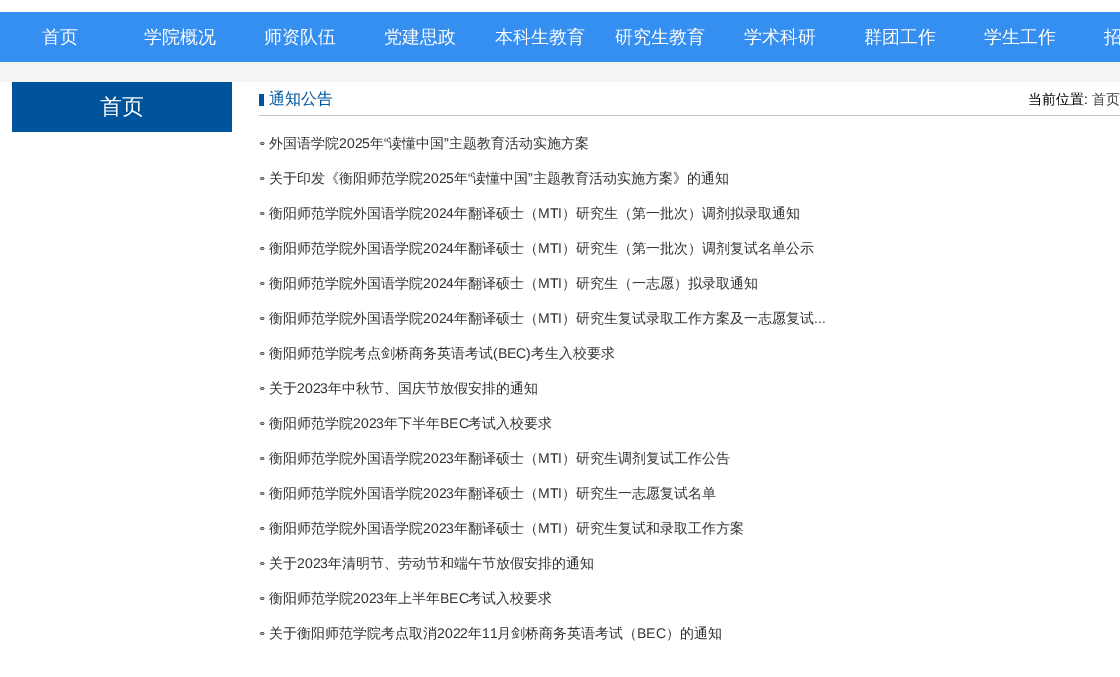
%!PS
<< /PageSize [1120 677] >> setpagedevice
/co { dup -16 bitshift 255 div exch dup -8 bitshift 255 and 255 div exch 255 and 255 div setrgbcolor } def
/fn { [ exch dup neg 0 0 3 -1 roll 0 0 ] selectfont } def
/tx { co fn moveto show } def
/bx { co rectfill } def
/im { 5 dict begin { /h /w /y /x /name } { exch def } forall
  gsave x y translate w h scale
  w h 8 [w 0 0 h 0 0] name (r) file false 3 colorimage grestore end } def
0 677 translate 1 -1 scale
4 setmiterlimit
0 0 1120 677 16#F4F4F4 bx
0 0 1120 12 16#FFFFFF bx
0 12 1120 50 16#358FF0 bx
0 82 1120 595 16#FFFFFF bx
12 82 220 50 16#00549C bx
259 115 861 1 16#C3C3C3 bx
259 94 5 12 16#00549C bx
(media/1.raw) 259 142 6 3 im
(media/1.raw) 259 177 6 3 im
(media/1.raw) 259 212 6 3 im
(media/1.raw) 259 247 6 3 im
(media/1.raw) 259 282 6 3 im
(media/1.raw) 259 317 6 3 im
(media/1.raw) 259 352 6 3 im
(media/1.raw) 259 387 6 3 im
(media/1.raw) 259 422 6 3 im
(media/1.raw) 259 457 6 3 im
(media/1.raw) 259 492 6 3 im
(media/1.raw) 259 527 6 3 im
(media/1.raw) 259 562 6 3 im
(media/1.raw) 259 597 6 3 im
(media/1.raw) 259 632 6 3 im
(首页) 42 43 /WenQuanYiZenHei-Medium 18 16#FFFFFF tx
(学院概况) 144 43 /WenQuanYiZenHei-Medium 18 16#FFFFFF tx
(师资队伍) 264 43 /WenQuanYiZenHei-Medium 18 16#FFFFFF tx
(党建思政) 384 43 /WenQuanYiZenHei-Medium 18 16#FFFFFF tx
(本科生教育) 495 43 /WenQuanYiZenHei-Medium 18 16#FFFFFF tx
(研究生教育) 615 43 /WenQuanYiZenHei-Medium 18 16#FFFFFF tx
(学术科研) 744 43 /WenQuanYiZenHei-Medium 18 16#FFFFFF tx
(群团工作) 864 43 /WenQuanYiZenHei-Medium 18 16#FFFFFF tx
(学生工作) 984 43 /WenQuanYiZenHei-Medium 18 16#FFFFFF tx
(招) 1104 43 /WenQuanYiZenHei-Medium 18 16#FFFFFF tx
(首页) 100 114 /WenQuanYiZenHei-Medium 22 16#FFFFFF tx
(通知公告) 269 104 /WenQuanYiZenHei-Medium 16 16#00549C tx
(当前位置) 1028 104 /WenQuanYiZenHei-Medium 14 16#000000 tx
(:) 1084 104 /LiberationSans-Regular 14 16#000000 tx
(首页) 1092 104 /WenQuanYiZenHei-Medium 14 16#333333 tx
(外国语学院) 269 148 /WenQuanYiZenHei-Medium 14 16#333333 tx
(2025) 339 148 /LiberationSans-Regular 14 16#333333 tx
(年) 370 148 /WenQuanYiZenHei-Medium 14 16#333333 tx
(“) 384 148 /LiberationSans-Regular 14 16#333333 tx
(读懂中国) 388 148 /WenQuanYiZenHei-Medium 14 16#333333 tx
(”) 444 148 /LiberationSans-Regular 14 16#333333 tx
(主题教育活动实施方案) 449 148 /WenQuanYiZenHei-Medium 14 16#333333 tx
(关于印发《衡阳师范学院) 269 183 /WenQuanYiZenHei-Medium 14 16#333333 tx
(2025) 423 183 /LiberationSans-Regular 14 16#333333 tx
(年) 454 183 /WenQuanYiZenHei-Medium 14 16#333333 tx
(“) 468 183 /LiberationSans-Regular 14 16#333333 tx
(读懂中国) 472 183 /WenQuanYiZenHei-Medium 14 16#333333 tx
(”) 528 183 /LiberationSans-Regular 14 16#333333 tx
(主题教育活动实施方案》的通知) 533 183 /WenQuanYiZenHei-Medium 14 16#333333 tx
(衡阳师范学院外国语学院) 269 218 /WenQuanYiZenHei-Medium 14 16#333333 tx
(2024) 423 218 /LiberationSans-Regular 14 16#333333 tx
(年翻译硕士（) 454 218 /WenQuanYiZenHei-Medium 14 16#333333 tx
(MTI) 538 218 /LiberationSans-Regular 14 16#333333 tx
(）研究生（第一批次）调剂拟录取通知) 562 218 /WenQuanYiZenHei-Medium 14 16#333333 tx
(衡阳师范学院外国语学院) 269 253 /WenQuanYiZenHei-Medium 14 16#333333 tx
(2024) 423 253 /LiberationSans-Regular 14 16#333333 tx
(年翻译硕士（) 454 253 /WenQuanYiZenHei-Medium 14 16#333333 tx
(MTI) 538 253 /LiberationSans-Regular 14 16#333333 tx
(）研究生（第一批次）调剂复试名单公示) 562 253 /WenQuanYiZenHei-Medium 14 16#333333 tx
(衡阳师范学院外国语学院) 269 288 /WenQuanYiZenHei-Medium 14 16#333333 tx
(2024) 423 288 /LiberationSans-Regular 14 16#333333 tx
(年翻译硕士（) 454 288 /WenQuanYiZenHei-Medium 14 16#333333 tx
(MTI) 538 288 /LiberationSans-Regular 14 16#333333 tx
(）研究生（一志愿）拟录取通知) 562 288 /WenQuanYiZenHei-Medium 14 16#333333 tx
(衡阳师范学院外国语学院) 269 323 /WenQuanYiZenHei-Medium 14 16#333333 tx
(2024) 423 323 /LiberationSans-Regular 14 16#333333 tx
(年翻译硕士（) 454 323 /WenQuanYiZenHei-Medium 14 16#333333 tx
(MTI) 538 323 /LiberationSans-Regular 14 16#333333 tx
(）研究生复试录取工作方案及一志愿复试) 562 323 /WenQuanYiZenHei-Medium 14 16#333333 tx
(...) 814 323 /LiberationSans-Regular 14 16#333333 tx
(衡阳师范学院考点剑桥商务英语考试) 269 358 /WenQuanYiZenHei-Medium 14 16#333333 tx
(\(BEC\)) 493 358 /LiberationSans-Regular 14 16#333333 tx
(考生入校要求) 531 358 /WenQuanYiZenHei-Medium 14 16#333333 tx
(关于) 269 393 /WenQuanYiZenHei-Medium 14 16#333333 tx
(2023) 297 393 /LiberationSans-Regular 14 16#333333 tx
(年中秋节、国庆节放假安排的通知) 328 393 /WenQuanYiZenHei-Medium 14 16#333333 tx
(衡阳师范学院) 269 428 /WenQuanYiZenHei-Medium 14 16#333333 tx
(2023) 353 428 /LiberationSans-Regular 14 16#333333 tx
(年下半年) 384 428 /WenQuanYiZenHei-Medium 14 16#333333 tx
(BEC) 440 428 /LiberationSans-Regular 14 16#333333 tx
(考试入校要求) 468 428 /WenQuanYiZenHei-Medium 14 16#333333 tx
(衡阳师范学院外国语学院) 269 463 /WenQuanYiZenHei-Medium 14 16#333333 tx
(2023) 423 463 /LiberationSans-Regular 14 16#333333 tx
(年翻译硕士（) 454 463 /WenQuanYiZenHei-Medium 14 16#333333 tx
(MTI) 538 463 /LiberationSans-Regular 14 16#333333 tx
(）研究生调剂复试工作公告) 562 463 /WenQuanYiZenHei-Medium 14 16#333333 tx
(衡阳师范学院外国语学院) 269 498 /WenQuanYiZenHei-Medium 14 16#333333 tx
(2023) 423 498 /LiberationSans-Regular 14 16#333333 tx
(年翻译硕士（) 454 498 /WenQuanYiZenHei-Medium 14 16#333333 tx
(MTI) 538 498 /LiberationSans-Regular 14 16#333333 tx
(）研究生一志愿复试名单) 562 498 /WenQuanYiZenHei-Medium 14 16#333333 tx
(衡阳师范学院外国语学院) 269 533 /WenQuanYiZenHei-Medium 14 16#333333 tx
(2023) 423 533 /LiberationSans-Regular 14 16#333333 tx
(年翻译硕士（) 454 533 /WenQuanYiZenHei-Medium 14 16#333333 tx
(MTI) 538 533 /LiberationSans-Regular 14 16#333333 tx
(）研究生复试和录取工作方案) 562 533 /WenQuanYiZenHei-Medium 14 16#333333 tx
(关于) 269 568 /WenQuanYiZenHei-Medium 14 16#333333 tx
(2023) 297 568 /LiberationSans-Regular 14 16#333333 tx
(年清明节、劳动节和端午节放假安排的通知) 328 568 /WenQuanYiZenHei-Medium 14 16#333333 tx
(衡阳师范学院) 269 603 /WenQuanYiZenHei-Medium 14 16#333333 tx
(2023) 353 603 /LiberationSans-Regular 14 16#333333 tx
(年上半年) 384 603 /WenQuanYiZenHei-Medium 14 16#333333 tx
(BEC) 440 603 /LiberationSans-Regular 14 16#333333 tx
(考试入校要求) 468 603 /WenQuanYiZenHei-Medium 14 16#333333 tx
(关于衡阳师范学院考点取消) 269 638 /WenQuanYiZenHei-Medium 14 16#333333 tx
(2022) 437 638 /LiberationSans-Regular 14 16#333333 tx
(年) 468 638 /WenQuanYiZenHei-Medium 14 16#333333 tx
(11) 482 638 /LiberationSans-Regular 14 16#333333 tx
(月剑桥商务英语考试（) 497 638 /WenQuanYiZenHei-Medium 14 16#333333 tx
(BEC) 637 638 /LiberationSans-Regular 14 16#333333 tx
(）的通知) 666 638 /WenQuanYiZenHei-Medium 14 16#333333 tx
showpage
